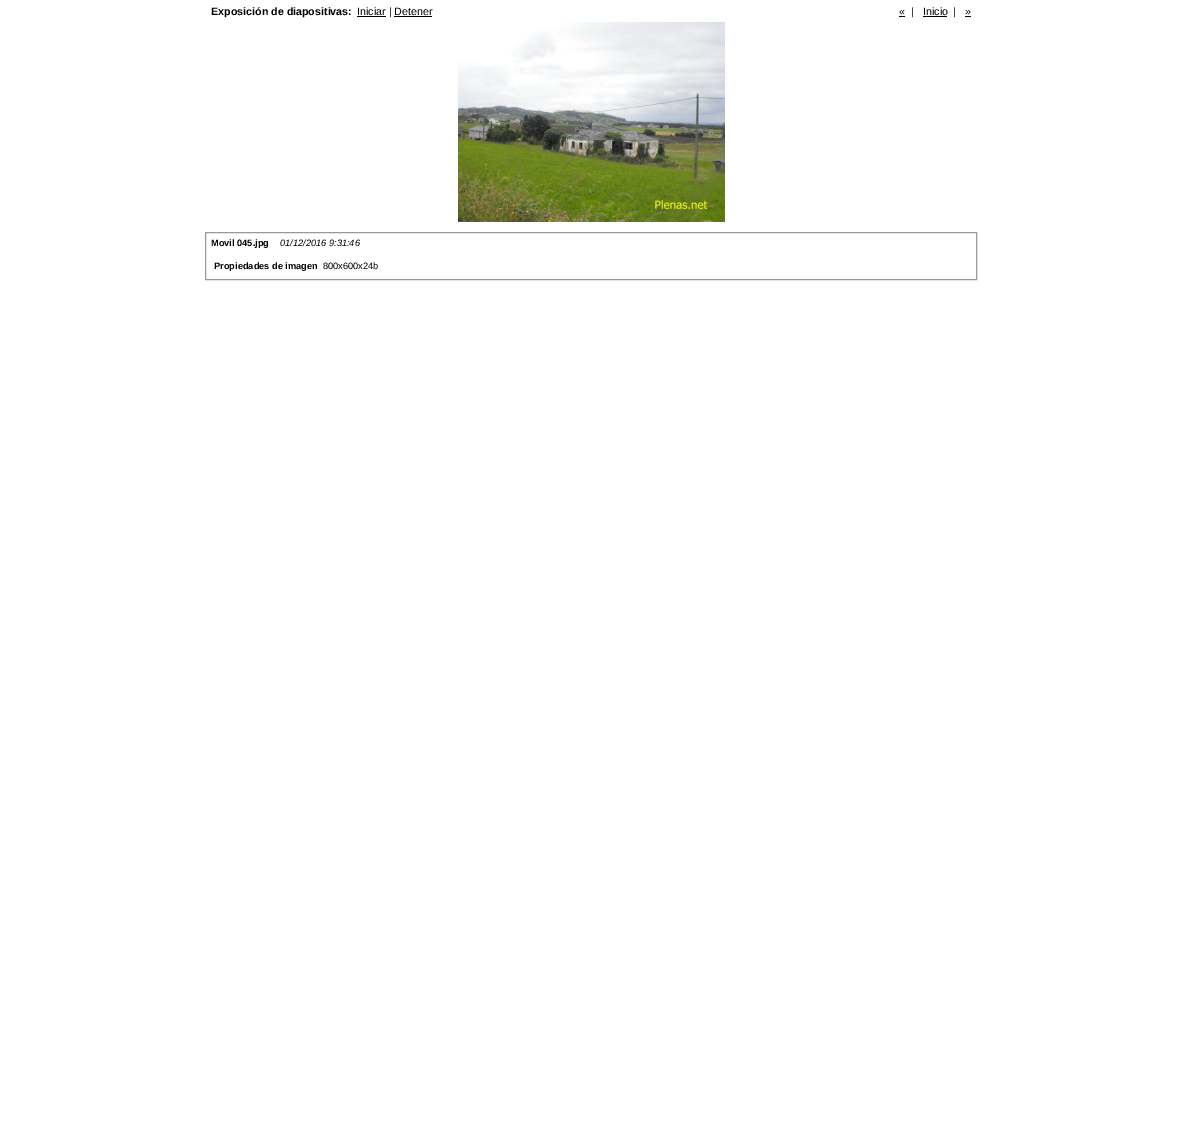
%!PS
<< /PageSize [1182 1132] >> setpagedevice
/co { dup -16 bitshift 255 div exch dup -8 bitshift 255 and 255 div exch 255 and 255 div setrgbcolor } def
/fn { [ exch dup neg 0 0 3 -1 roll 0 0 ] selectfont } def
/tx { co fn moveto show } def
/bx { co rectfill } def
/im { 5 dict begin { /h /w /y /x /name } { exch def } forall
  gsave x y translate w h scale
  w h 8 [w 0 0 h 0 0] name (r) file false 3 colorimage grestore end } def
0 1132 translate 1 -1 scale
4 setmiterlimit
0 0 1182 1132 16#FFFFFF bx
357 16 29 1 16#000000 bx
394 16 38 1 16#000000 bx
899 16 6 1 16#000000 bx
923 16 24 1 16#000000 bx
965 16 6 1 16#000000 bx
(media/1.raw) 458 22 267 200 im
16#999999 co
205.5 232.5 771 47 rectstroke
(Exposición de diapositivas:) 211 15 /LiberationSans-Bold 10.7 16#000000 tx
(Iniciar | Detener) 357 15 /LiberationSans-Regular 10.7 16#000000 tx
(«) 899 15 /LiberationSans-Regular 10.7 16#000000 tx
(|) 911 15 /LiberationSans-Regular 10.7 16#000000 tx
(Inicio) 923 15 /LiberationSans-Regular 10.7 16#000000 tx
(|) 953 15 /LiberationSans-Regular 10.7 16#000000 tx
(») 965 15 /LiberationSans-Regular 10.7 16#000000 tx
(Movil 045.jpg) 211 246 /LiberationSans-Bold 9.25 16#000000 tx
(01/12/2016 9:31:46) 280 246 /LiberationSans-Italic 9.25 16#000000 tx
(Propiedades de imagen) 214 269 /LiberationSans-Bold 9.25 16#000000 tx
(800x600x24b) 323 269 /LiberationSans-Regular 9.25 16#000000 tx
showpage
